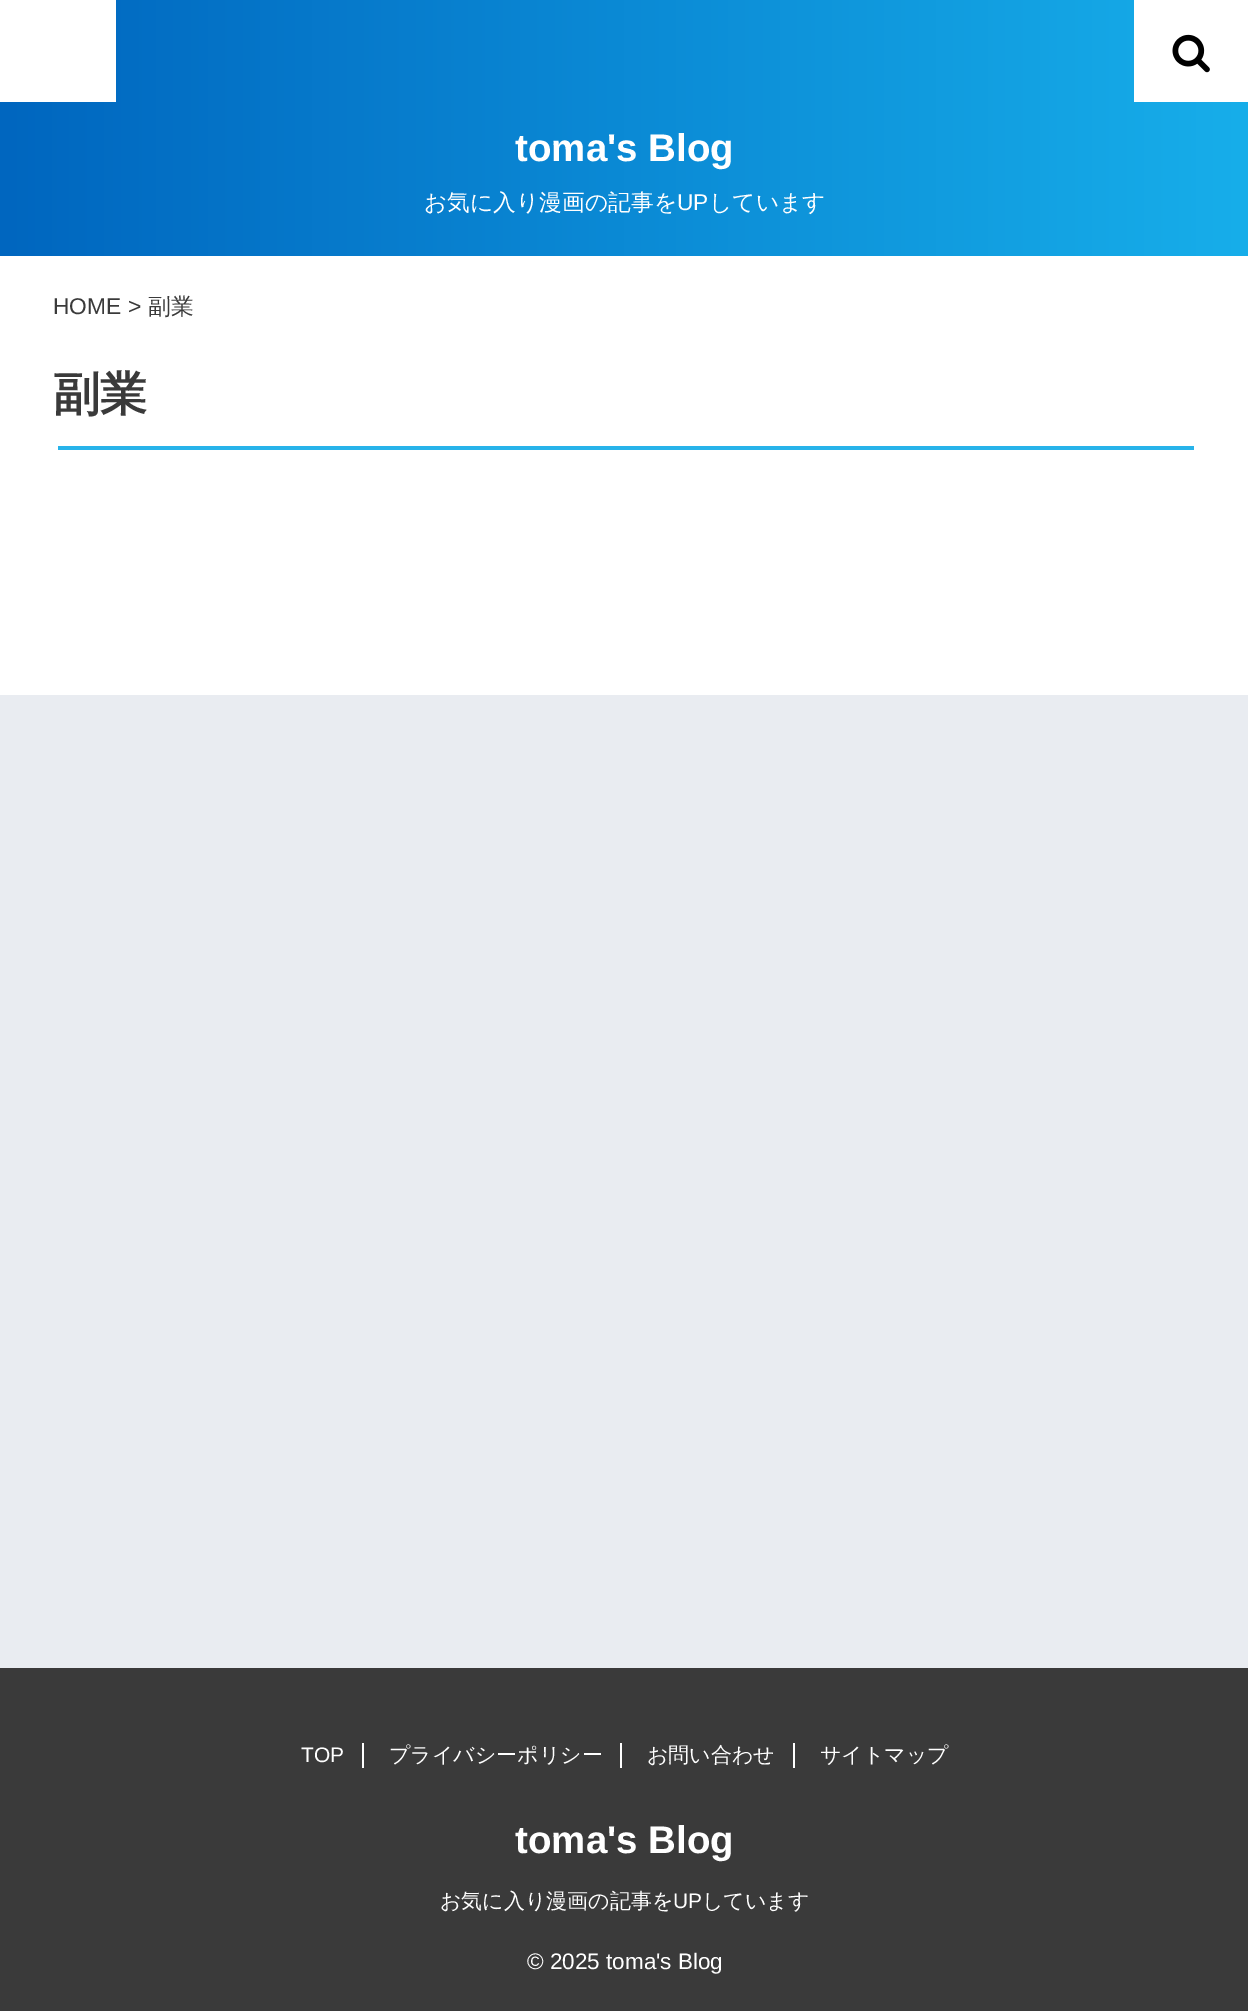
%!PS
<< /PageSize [1248 2011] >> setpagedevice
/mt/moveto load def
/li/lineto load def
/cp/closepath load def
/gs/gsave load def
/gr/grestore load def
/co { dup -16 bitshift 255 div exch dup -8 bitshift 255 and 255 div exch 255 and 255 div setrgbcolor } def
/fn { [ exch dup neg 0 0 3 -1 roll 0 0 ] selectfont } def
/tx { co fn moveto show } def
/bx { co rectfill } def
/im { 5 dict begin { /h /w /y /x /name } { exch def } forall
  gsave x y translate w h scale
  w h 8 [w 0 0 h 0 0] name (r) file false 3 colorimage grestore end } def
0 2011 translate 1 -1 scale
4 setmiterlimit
0 0 1248 2011 16#E9ECF1 bx
gs 0 0 mt 1248 0 li 1248 256 li 0 256 li cp clip newpath
<< /ShadingType 2 /ColorSpace /DeviceRGB /Coords [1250 128 0 128] /Extend [true true] /Function << /FunctionType 2 /Domain [0 1] /C0 [.09 .682 .918] /C1 [0 .4 .749] /N 1 >> >> shfill gr
0 0 116 102 16#FFFFFF bx
1134 0 114 102 16#FFFFFF bx
(media/1.raw) 1172 34 38 39 im
0 256 1248 439 16#FFFFFF bx
58 446 1136 4 16#27B3EA bx
0 1668 1248 343 16#3A3A3A bx
362 1743 2 25 16#FFFFFF bx
620 1743 2 25 16#FFFFFF bx
793 1743 2 25 16#FFFFFF bx
(toma's Blog) 515 161 /LiberationSans-Bold 38.5 16#FFFFFF tx
(お気に入り漫画の記事を) 424 210 /WenQuanYiZenHei-Medium 22.75 16#FFFFFF tx
(UP) 677 210 /LiberationSans-Regular 22.75 16#FFFFFF tx
(しています) 709 210 /WenQuanYiZenHei-Medium 22.75 16#FFFFFF tx
(HOME >) 53 314 /LiberationSans-Regular 22.75 16#3A3A3A tx
(副業) 148 314 /WenQuanYiZenHei-Medium 22.75 16#3A3A3A tx
(副業) 53 410 /WenQuanYiZenHei-Bold 47 16#3A3A3A tx
(TOP) 301 1762 /LiberationSans-Regular 21 16#FFFFFF tx
(プライバシーポリシー) 389 1762 /WenQuanYiZenHei-Medium 21 16#FFFFFF tx
(お問い合わせ) 647 1762 /WenQuanYiZenHei-Medium 21 16#FFFFFF tx
(サイトマップ) 820 1762 /WenQuanYiZenHei-Medium 21 16#FFFFFF tx
(toma's Blog) 515 1853 /LiberationSans-Bold 38.5 16#FFFFFF tx
(お気に入り漫画の記事を) 440 1908 /WenQuanYiZenHei-Medium 21 16#FFFFFF tx
(UP) 673 1908 /LiberationSans-Regular 21 16#FFFFFF tx
(しています) 702 1908 /WenQuanYiZenHei-Medium 21 16#FFFFFF tx
(© 2025 toma's Blog) 527 1969 /LiberationSans-Regular 22.5 16#FFFFFF tx
showpage
